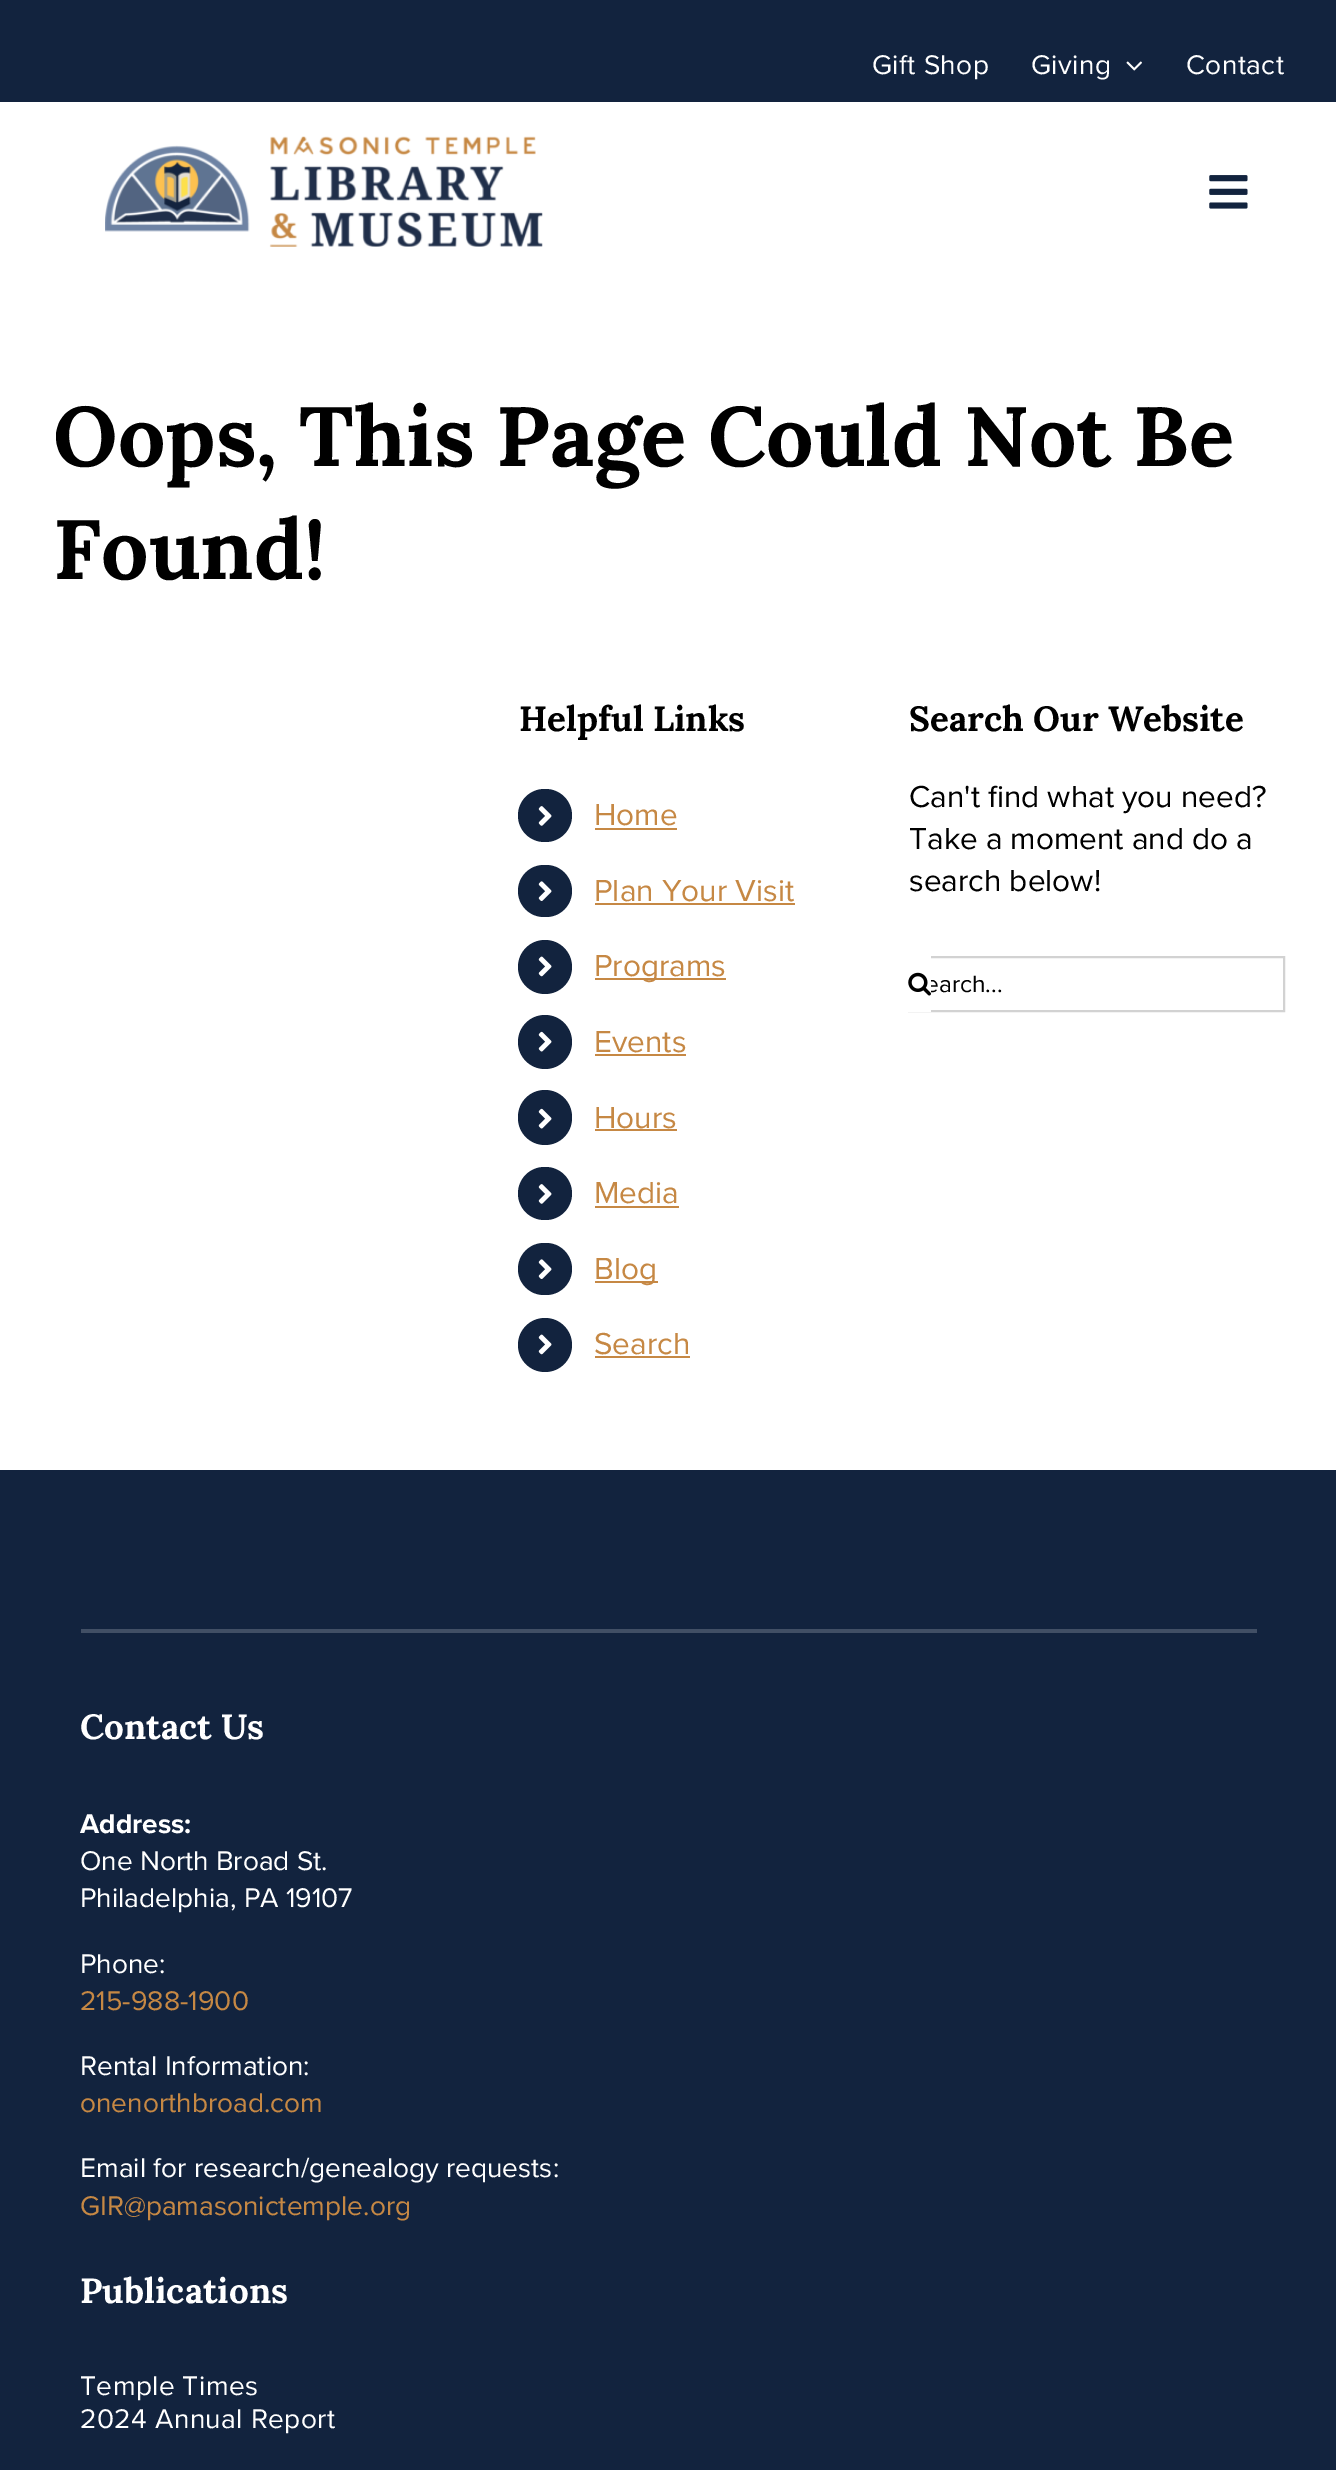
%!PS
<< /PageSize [1336 2470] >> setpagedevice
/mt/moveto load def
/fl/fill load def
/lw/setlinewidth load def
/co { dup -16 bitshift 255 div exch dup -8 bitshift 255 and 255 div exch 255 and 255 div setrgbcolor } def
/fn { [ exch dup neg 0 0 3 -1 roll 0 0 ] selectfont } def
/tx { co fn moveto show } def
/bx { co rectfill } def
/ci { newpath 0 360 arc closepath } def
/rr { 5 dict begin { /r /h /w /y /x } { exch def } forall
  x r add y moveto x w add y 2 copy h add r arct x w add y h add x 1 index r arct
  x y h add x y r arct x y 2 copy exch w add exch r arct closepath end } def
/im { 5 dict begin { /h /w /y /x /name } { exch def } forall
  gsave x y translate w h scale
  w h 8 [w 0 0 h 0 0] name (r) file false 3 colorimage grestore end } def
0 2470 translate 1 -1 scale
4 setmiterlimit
0 0 1336 2470 16#FFFFFF bx
0 0 1336 102 16#12233E bx
(media/1.raw) 1126 61 16 10 im
(media/2.raw) 105 136 438 111 im
(media/3.raw) 1209 175 39 34 im
518 789 54 53 26.5 rr fl
(media/4.raw) 538 806 14 20 im
595 828 82 2 16#C68844 bx
16#12233E co
518 865 54 52 26 rr fl
(media/5.raw) 538 881 14 20 im
595 903 200 2 16#C68844 bx
16#12233E co
545 967 27 ci fl
(media/6.raw) 538 956 14 21 im
595 978 131 2 16#C68844 bx
16#12233E co
545 1042 27 ci fl
(media/7.raw) 538 1031 14 21 im
595 1054 91 2 16#C68844 bx
16#12233E co
518 1090 54 55 27 rr fl
(media/7.raw) 538 1108 14 21 im
595 1129 82 2 16#C68844 bx
16#12233E co
518 1167 54 53 26.5 rr fl
(media/4.raw) 538 1184 14 20 im
595 1206 84 2 16#C68844 bx
16#12233E co
518 1243 54 52 26 rr fl
(media/5.raw) 538 1259 14 20 im
595 1281 63 2 16#C68844 bx
16#12233E co
545 1345 27 ci fl
(media/6.raw) 538 1334 14 21 im
595 1356 95 2 16#C68844 bx
16#D2D2D2 co
2 lw
909 957 375 54 rectstroke
0 1470 1336 1000 16#12233E bx
81 1629 1176 4 16#414F65 bx
/ProximaNova-Regular 28 fn
16#FFFFFF co
872 74 mt .4 0 (Gift Shop) ashow
1031 74 mt .4 0 (Giving) ashow
1186 74 mt .4 0 (Contact) ashow
(Oops, This Page Could Not Be) 53 466 /Lora-Bold 84 16#000000 tx
(Found!) 53 579 /Lora-Bold 84 16#000000 tx
(Helpful Links) 519 731 /Lora-Bold 35 16#000000 tx
(Home) 594 825 /ProximaNova-Regular 31.5 16#C68844 tx
(Plan Your Visit) 594 901 /ProximaNova-Regular 31.5 16#C68844 tx
(Programs) 594 976 /ProximaNova-Regular 31.5 16#C68844 tx
(Events) 594 1052 /ProximaNova-Regular 31.5 16#C68844 tx
(Hours) 594 1128 /ProximaNova-Regular 31.5 16#C68844 tx
(Media) 594 1203 /ProximaNova-Regular 31.5 16#C68844 tx
(Blog) 594 1279 /ProximaNova-Regular 31.5 16#C68844 tx
(Search) 594 1354 /ProximaNova-Regular 31.5 16#C68844 tx
(Search Our Website) 909 731 /Lora-Bold 35 16#000000 tx
(Can't find what you need?) 909 807 /ProximaNova-Regular 31.5 16#000000 tx
(Take a moment and do a) 909 849 /ProximaNova-Regular 31.5 16#000000 tx
(search below!) 909 891 /ProximaNova-Regular 31.5 16#000000 tx
(earch...) 925 992 /ProximaNova-Regular 24.5 16#000000 tx
908 956 23 56 16#FFFFFF bx
(media/8.raw) 908 972 23 24 im
(Contact Us) 80 1739 /Lora-Bold 35 16#FFFFFF tx
(Address:) 80 1833 /ProximaNova-Bold 28 16#FFFFFF tx
(One North Broad St.) 80 1870 /ProximaNova-Regular 28 16#FFFFFF tx
(Philadelphia, PA 19107) 80 1907 /ProximaNova-Regular 28 16#FFFFFF tx
(Phone:) 80 1973 /ProximaNova-Regular 28 16#FFFFFF tx
(215-988-1900) 80 2010 /ProximaNova-Regular 28 16#C68844 tx
(Rental Information:) 80 2075 /ProximaNova-Regular 28 16#FFFFFF tx
(onenorthbroad.com) 80 2112 /ProximaNova-Regular 28 16#C68844 tx
(Email for research/genealogy requests:) 80 2177 /ProximaNova-Regular 28 16#FFFFFF tx
(GIR@pamasonictemple.org) 80 2215 /ProximaNova-Regular 28 16#C68844 tx
(Publications) 80 2303 /Lora-Bold 35 16#FFFFFF tx
/ProximaNova-Regular 28 fn
80 2395 mt .4 0 (Temple Times) ashow
80 2428 mt .4 0 (2024 Annual Report) ashow
showpage
